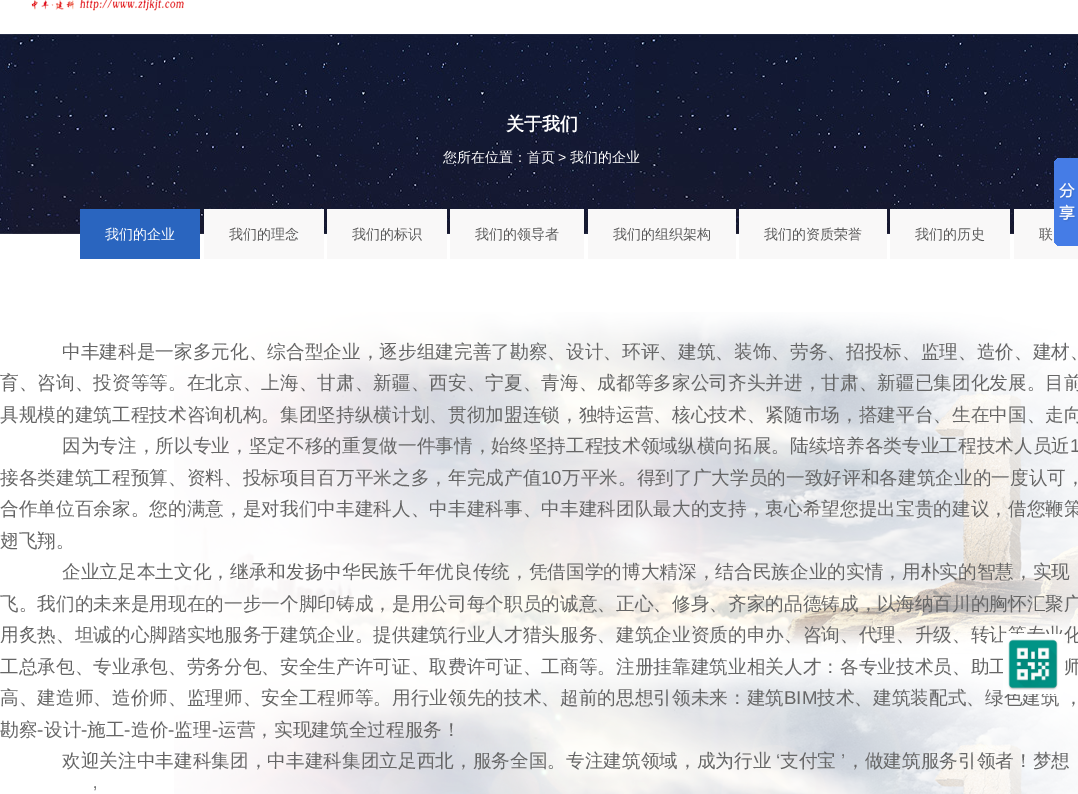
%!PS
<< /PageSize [1078 794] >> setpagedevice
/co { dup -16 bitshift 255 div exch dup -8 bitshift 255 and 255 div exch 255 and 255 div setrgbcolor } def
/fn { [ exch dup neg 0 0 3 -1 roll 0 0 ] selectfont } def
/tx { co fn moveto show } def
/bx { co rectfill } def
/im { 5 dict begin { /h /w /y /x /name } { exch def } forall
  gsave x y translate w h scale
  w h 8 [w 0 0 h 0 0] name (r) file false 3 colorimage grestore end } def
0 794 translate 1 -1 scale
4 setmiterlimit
0 0 1078 794 16#FFFFFF bx
(media/1.raw) 31 0 153 11 im
(media/2.raw) 0 34 1078 200 im
80 209 120 50 16#2A65BF bx
204 209 120 50 16#F9F8F8 bx
327 209 120 50 16#F9F8F8 bx
450 209 134 50 16#F9F8F8 bx
588 209 148 50 16#F9F8F8 bx
739 209 148 50 16#F9F8F8 bx
890 209 120 50 16#F9F8F8 bx
1014 209 64 50 16#F9F8F8 bx
(media/3.raw) 1054 158 24 88 im
(media/4.raw) 174 312 904 482 im
(关于我们) 506 130 /WenQuanYiZenHei-Bold 18 16#FFFFFF tx
(您所在位置：首页) 443 162 /WenQuanYiZenHei-Medium 14 16#FFFFFF tx
(>) 558 162 /LiberationSans-Regular 14 16#FFFFFF tx
(我们的企业) 570 162 /WenQuanYiZenHei-Medium 14 16#FFFFFF tx
(我们的企业) 105 239 /WenQuanYiZenHei-Medium 14 16#FFFFFF tx
(我们的理念) 229 239 /WenQuanYiZenHei-Medium 14 16#5B5B5B tx
(我们的标识) 352 239 /WenQuanYiZenHei-Medium 14 16#5B5B5B tx
(我们的领导者) 475 239 /WenQuanYiZenHei-Medium 14 16#5B5B5B tx
(我们的组织架构) 613 239 /WenQuanYiZenHei-Medium 14 16#5B5B5B tx
(我们的资质荣誉) 764 239 /WenQuanYiZenHei-Medium 14 16#5B5B5B tx
(我们的历史) 915 239 /WenQuanYiZenHei-Medium 14 16#5B5B5B tx
(联) 1039 239 /WenQuanYiZenHei-Medium 14 16#5B5B5B tx
(中丰建科是一家多元化、综合型企业，逐步组建完善了勘察、设计、环评、建筑、装饰、劳务、招投标、监理、造价、建材、) 62 358 /WenQuanYiZenHei-Medium 18.67 16#666666 tx
(育、咨询、投资等等。在北京、上海、甘肃、新疆、西安、宁夏、青海、成都等多家公司齐头并进，甘肃、新疆已集团化发展。目前) 0 389 /WenQuanYiZenHei-Medium 18.67 16#666666 tx
(具规模的建筑工程技术咨询机构。集团坚持纵横计划、贯彻加盟连锁，独特运营、核心技术、紧随市场，搭建平台、生在中国、走向) 0 421 /WenQuanYiZenHei-Medium 18.67 16#666666 tx
(因为专注，所以专业，坚定不移的重复做一件事情，始终坚持工程技术领域纵横向拓展。陆续培养各类专业工程技术人员近) 62 452 /WenQuanYiZenHei-Medium 18.67 16#666666 tx
(1) 1070 452 /LiberationSans-Regular 18.67 16#666666 tx
(接各类建筑工程预算、资料、投标项目百万平米之多，年完成产值) 0 484 /WenQuanYiZenHei-Medium 18.67 16#666666 tx
(10) 541 484 /LiberationSans-Regular 18.67 16#666666 tx
(万平米。得到了广大学员的一致好评和各建筑企业的一度认可，) 562 484 /WenQuanYiZenHei-Medium 18.67 16#666666 tx
(合作单位百余家。您的满意，是对我们中丰建科人、中丰建科事、中丰建科团队最大的支持，衷心希望您提出宝贵的建议，借您鞭策) 0 515 /WenQuanYiZenHei-Medium 18.67 16#666666 tx
(翅飞翔。) 0 547 /WenQuanYiZenHei-Medium 18.67 16#666666 tx
(企业立足本土文化，继承和发扬中华民族千年优良传统，凭借国学的博大精深，结合民族企业的实情，用朴实的智慧，实现) 62 578 /WenQuanYiZenHei-Medium 18.67 16#666666 tx
(飞。我们的未来是用现在的一步一个脚印铸成，是用公司每个职员的诚意、正心、修身、齐家的品德铸成，以海纳百川的胸怀汇聚广) 0 610 /WenQuanYiZenHei-Medium 18.67 16#666666 tx
(用炙热、坦诚的心脚踏实地服务于建筑企业。提供建筑行业人才猎头服务、建筑企业资质的申办、咨询、代理、升级、转让等专业化) 0 641 /WenQuanYiZenHei-Medium 18.67 16#666666 tx
(工总承包、专业承包、劳务分包、安全生产许可证、取费许可证、工商等。注册挂靠建筑业相关人才：各专业技术员、助工) 0 673 /WenQuanYiZenHei-Medium 18.67 16#666666 tx
(师) 1064 673 /WenQuanYiZenHei-Medium 18.67 16#666666 tx
(高、建造师、造价师、监理师、安全工程师等。用行业领先的技术、超前的思想引领未来：建筑) 0 704 /WenQuanYiZenHei-Medium 18.67 16#666666 tx
(BIM) 784 704 /LiberationSans-Regular 18.67 16#666666 tx
(技术、建筑装配式、绿色建筑) 817 704 /WenQuanYiZenHei-Medium 18.67 16#666666 tx
(，) 1064 704 /WenQuanYiZenHei-Medium 18.67 16#666666 tx
(勘察) 0 736 /WenQuanYiZenHei-Medium 18.67 16#666666 tx
(-) 37 736 /LiberationSans-Regular 18.67 16#666666 tx
(设计) 44 736 /WenQuanYiZenHei-Medium 18.67 16#666666 tx
(-) 81 736 /LiberationSans-Regular 18.67 16#666666 tx
(施工) 87 736 /WenQuanYiZenHei-Medium 18.67 16#666666 tx
(-) 124 736 /LiberationSans-Regular 18.67 16#666666 tx
(造价) 131 736 /WenQuanYiZenHei-Medium 18.67 16#666666 tx
(-) 168 736 /LiberationSans-Regular 18.67 16#666666 tx
(监理) 174 736 /WenQuanYiZenHei-Medium 18.67 16#666666 tx
(-) 212 736 /LiberationSans-Regular 18.67 16#666666 tx
(运营，实现建筑全过程服务！) 218 736 /WenQuanYiZenHei-Medium 18.67 16#666666 tx
(欢迎关注中丰建科集团，中丰建科集团立足西北，服务全国。专注建筑领域，成为行业) 62 767 /WenQuanYiZenHei-Medium 18.67 16#666666 tx
(‘) 776 767 /LiberationSans-Regular 18.67 16#666666 tx
(支付宝) 780 767 /WenQuanYiZenHei-Medium 18.67 16#666666 tx
(’) 841 767 /LiberationSans-Regular 18.67 16#666666 tx
(，做建筑服务引领者！梦想) 846 767 /WenQuanYiZenHei-Medium 18.67 16#666666 tx
(’) 93 799 /LiberationSans-Regular 18.67 16#666666 tx
(media/5.raw) 1003 634 60 60 im
showpage
